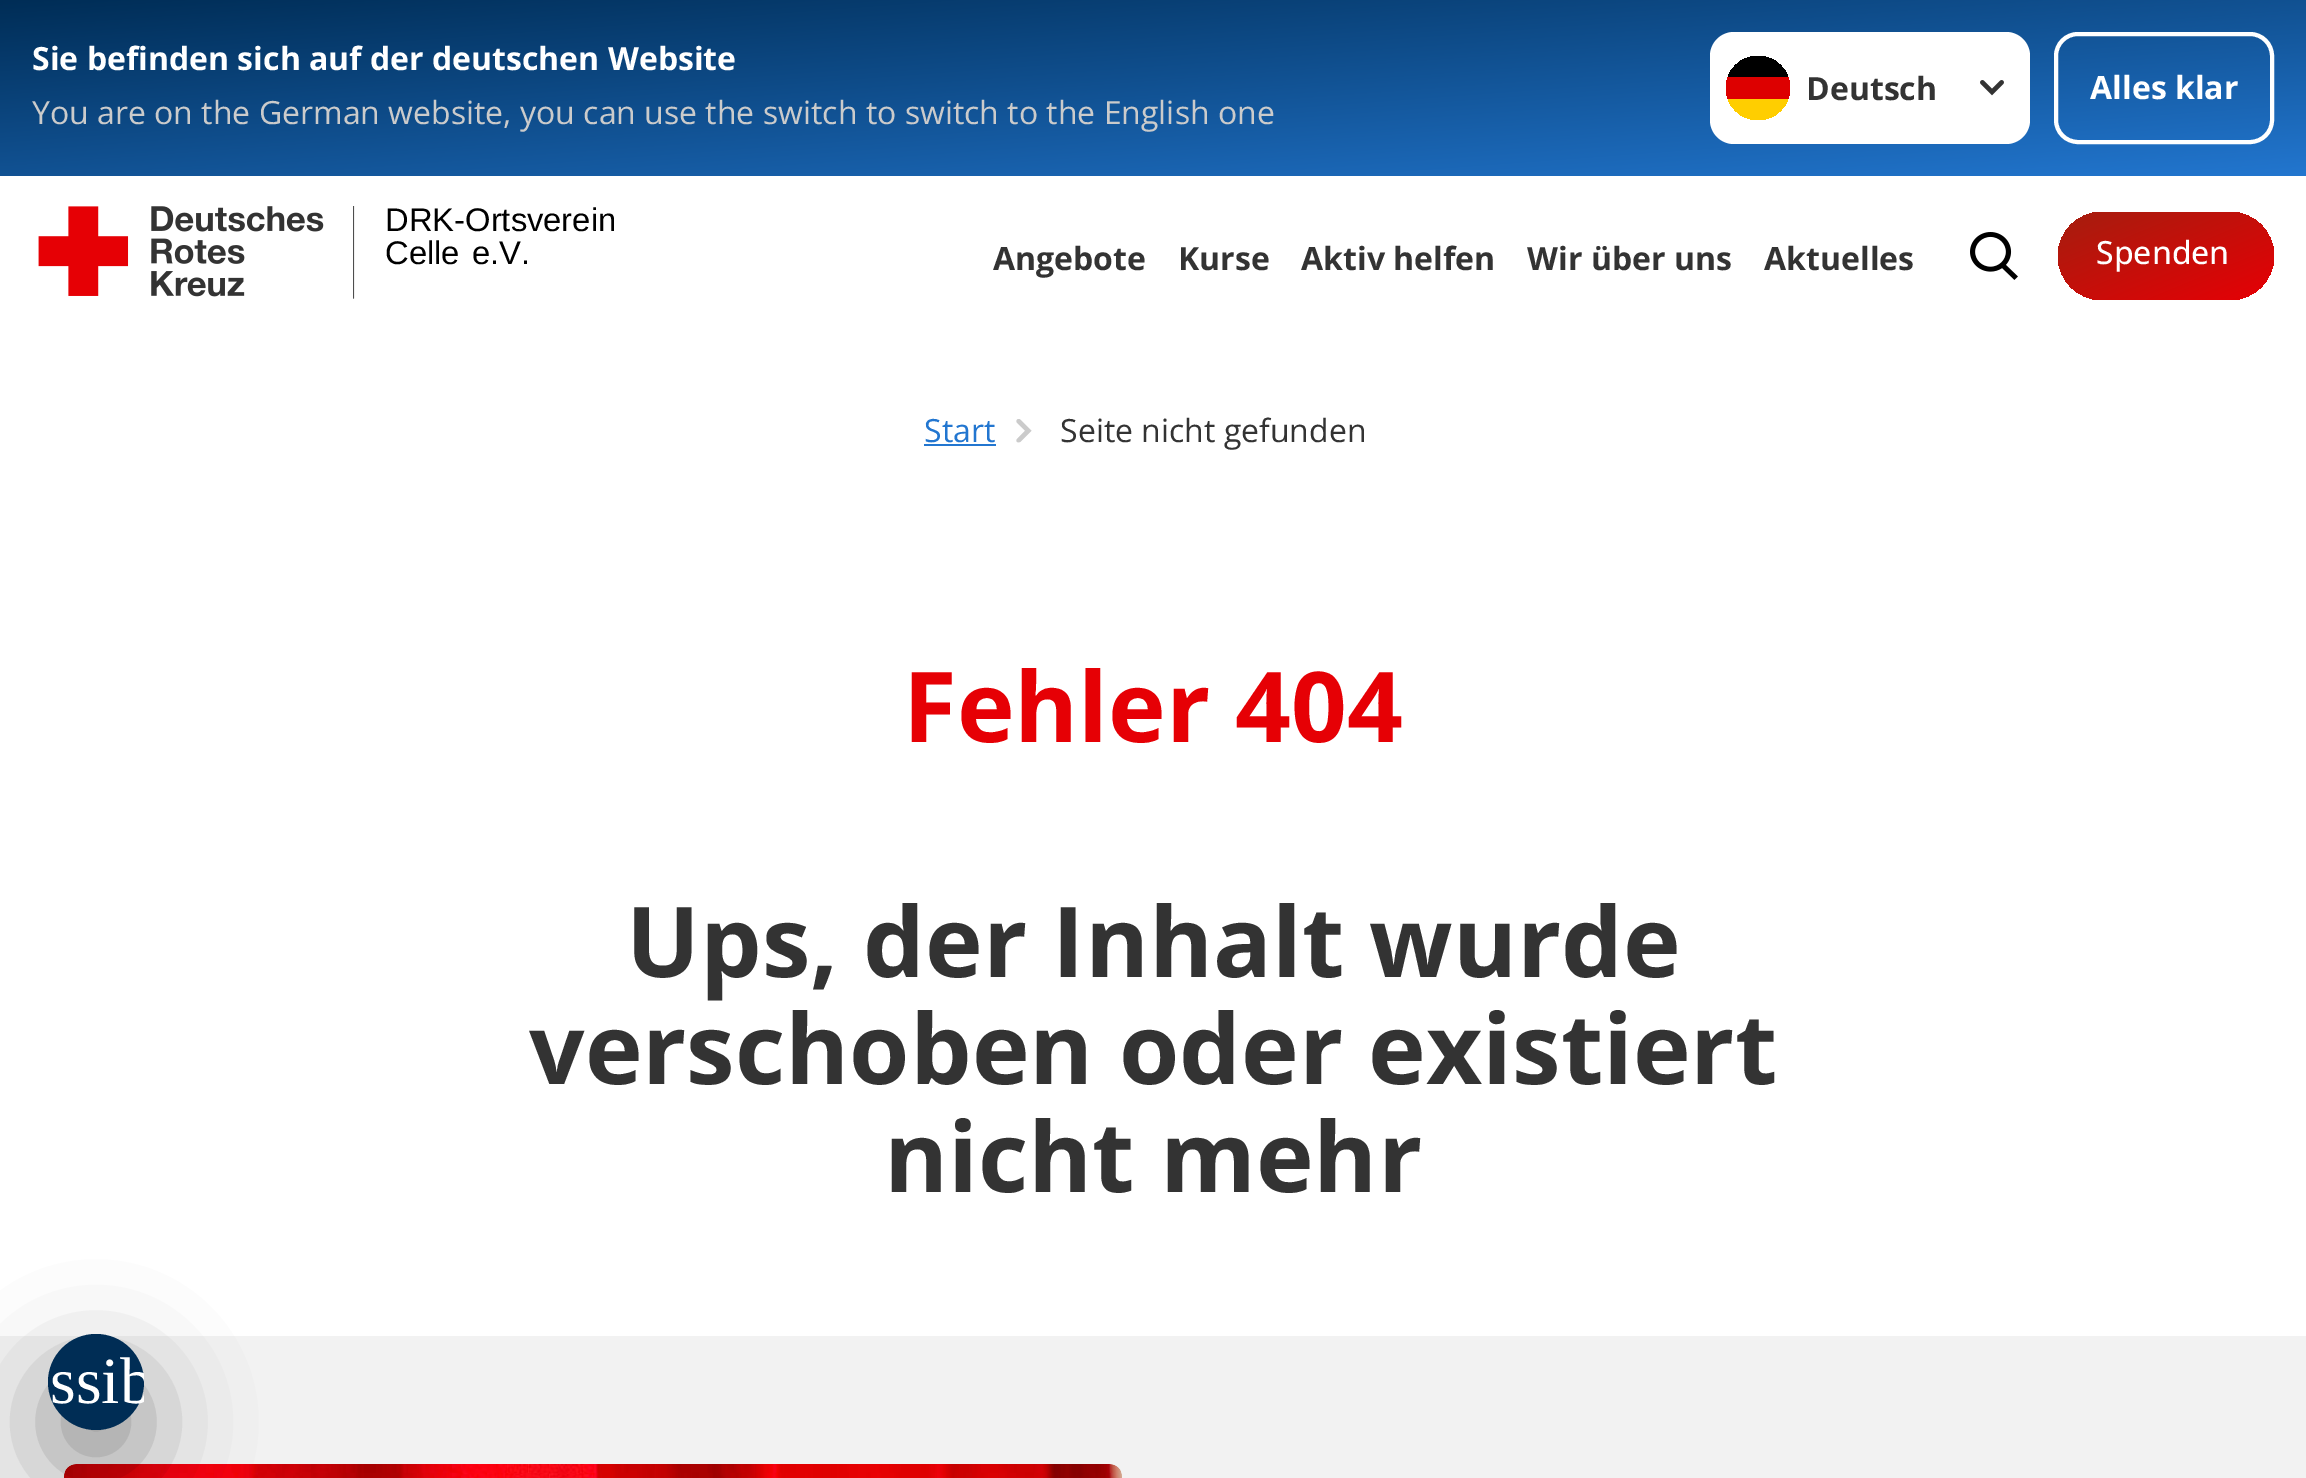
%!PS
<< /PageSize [2306 1478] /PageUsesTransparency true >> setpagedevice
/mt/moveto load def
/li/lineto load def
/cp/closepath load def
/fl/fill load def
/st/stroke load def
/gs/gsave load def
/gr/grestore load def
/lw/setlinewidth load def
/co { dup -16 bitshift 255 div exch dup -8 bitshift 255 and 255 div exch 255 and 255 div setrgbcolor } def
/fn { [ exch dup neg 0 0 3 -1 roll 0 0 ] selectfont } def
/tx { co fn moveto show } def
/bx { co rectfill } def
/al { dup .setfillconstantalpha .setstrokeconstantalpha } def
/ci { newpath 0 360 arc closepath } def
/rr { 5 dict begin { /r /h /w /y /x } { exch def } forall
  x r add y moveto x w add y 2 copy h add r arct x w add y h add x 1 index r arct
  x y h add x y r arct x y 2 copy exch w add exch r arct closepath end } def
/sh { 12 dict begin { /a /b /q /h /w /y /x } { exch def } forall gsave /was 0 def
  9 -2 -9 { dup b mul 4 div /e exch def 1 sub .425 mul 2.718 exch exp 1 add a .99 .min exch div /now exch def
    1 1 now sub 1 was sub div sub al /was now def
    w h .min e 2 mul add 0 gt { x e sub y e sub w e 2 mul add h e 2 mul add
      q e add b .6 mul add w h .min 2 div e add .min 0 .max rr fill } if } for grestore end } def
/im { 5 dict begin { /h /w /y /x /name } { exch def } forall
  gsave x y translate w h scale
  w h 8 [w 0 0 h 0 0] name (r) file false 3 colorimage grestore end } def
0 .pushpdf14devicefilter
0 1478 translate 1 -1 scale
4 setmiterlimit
0 0 2306 1478 16#FFFFFF bx
gs 0 0 mt 2306 0 li 2306 176 li 0 176 li cp clip newpath
<< /ShadingType 2 /ColorSpace /DeviceRGB /Coords [1140 -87 1166 263] /Extend [true true] /Function << /FunctionType 2 /Domain [0 1] /C0 [0 .176 .333] /C1 [.133 .463 .816] /N 1 >> >> shfill gr
1710 32 320 112 24 rr fl
gs
1726 56 64 64 32 rr clip newpath
1728 99 60 21 16#FFCE00 bx
1728 56 60 21 16#000000 bx
1726 77 64 22 16#DD0000 bx
gr
(media/1.raw) 1980 80 24 16 im
4 lw
2056 34 216 108 22 rr st
(media/2.raw) 38 206 317 93 im
(media/3.raw) 1970 232 48 48 im
gs 2058 212 216 88 44 rr clip newpath
<< /ShadingType 2 /ColorSpace /DeviceRGB /Coords [2135 181 2197 331] /Extend [true true] /Function << /FunctionType 2 /Domain [0 1] /C0 [.647 .118 .059] /C1 [.902 0 .02] /N 1 >> >> shfill gr
924 444 72 2 16#2276D0 bx
(media/4.raw) 1016 419 16 24 im
0 1336 2306 142 16#F2F2F2 bx
(media/5.raw) 64 1464 1058 14 im
16#000000 co
48 1374 96 96 48 51 .35 sh
16#002D55 co
96 1382 48 ci fl
(Sie befinden sich auf der deutschen Website) 32 70 /OpenSans-Bold 32 16#FFFFFF tx
(You are on the German website, you can use the switch to switch to the English one) 32 124 /OpenSans-Regular 32 16#CBCBCB tx
(Deutsch) 1806 100 /OpenSans-Bold 32 16#333333 tx
(Alles klar) 2090 99 /OpenSans-Bold 32 16#FFFFFF tx
(DRK-Ortsverein) 385 231 /LiberationSans-Regular 32.75 16#000000 tx
385 264 mt 3 0 32 (Celle e.V.) widthshow
(Angebote) 993 270 /OpenSans-Bold 32 16#333333 tx
(Kurse) 1178 270 /OpenSans-Bold 32 16#333333 tx
(Aktiv helfen) 1301 270 /OpenSans-Bold 32 16#333333 tx
(Wir über uns) 1527 270 /OpenSans-Bold 32 16#333333 tx
(Aktuelles) 1764 270 /OpenSans-Bold 32 16#333333 tx
(Spenden) 2096 264 /OpenSans-Medium 32 16#FFFFFF tx
(Start) 924 442 /OpenSans-Regular 32 16#2276D0 tx
(Seite nicht gefunden) 1060 442 /OpenSans-Regular 32 16#333333 tx
(Fehler 404) 903 742 /OpenSans-Bold 97.6 16#E60005 tx
(Ups, der Inhalt wurde) 626 977 /OpenSans-Bold 97.6 16#333333 tx
(verschoben oder existiert) 529 1084 /OpenSans-Bold 97.6 16#333333 tx
(nicht mehr) 884 1192 /OpenSans-Bold 97.6 16#333333 tx
gs
48 1334 96 96 rectclip
(ssib) 50 1403 /LiberationSerif-Regular 66 16#FFFFFF tx
gr
.poppdf14devicefilter showpage
